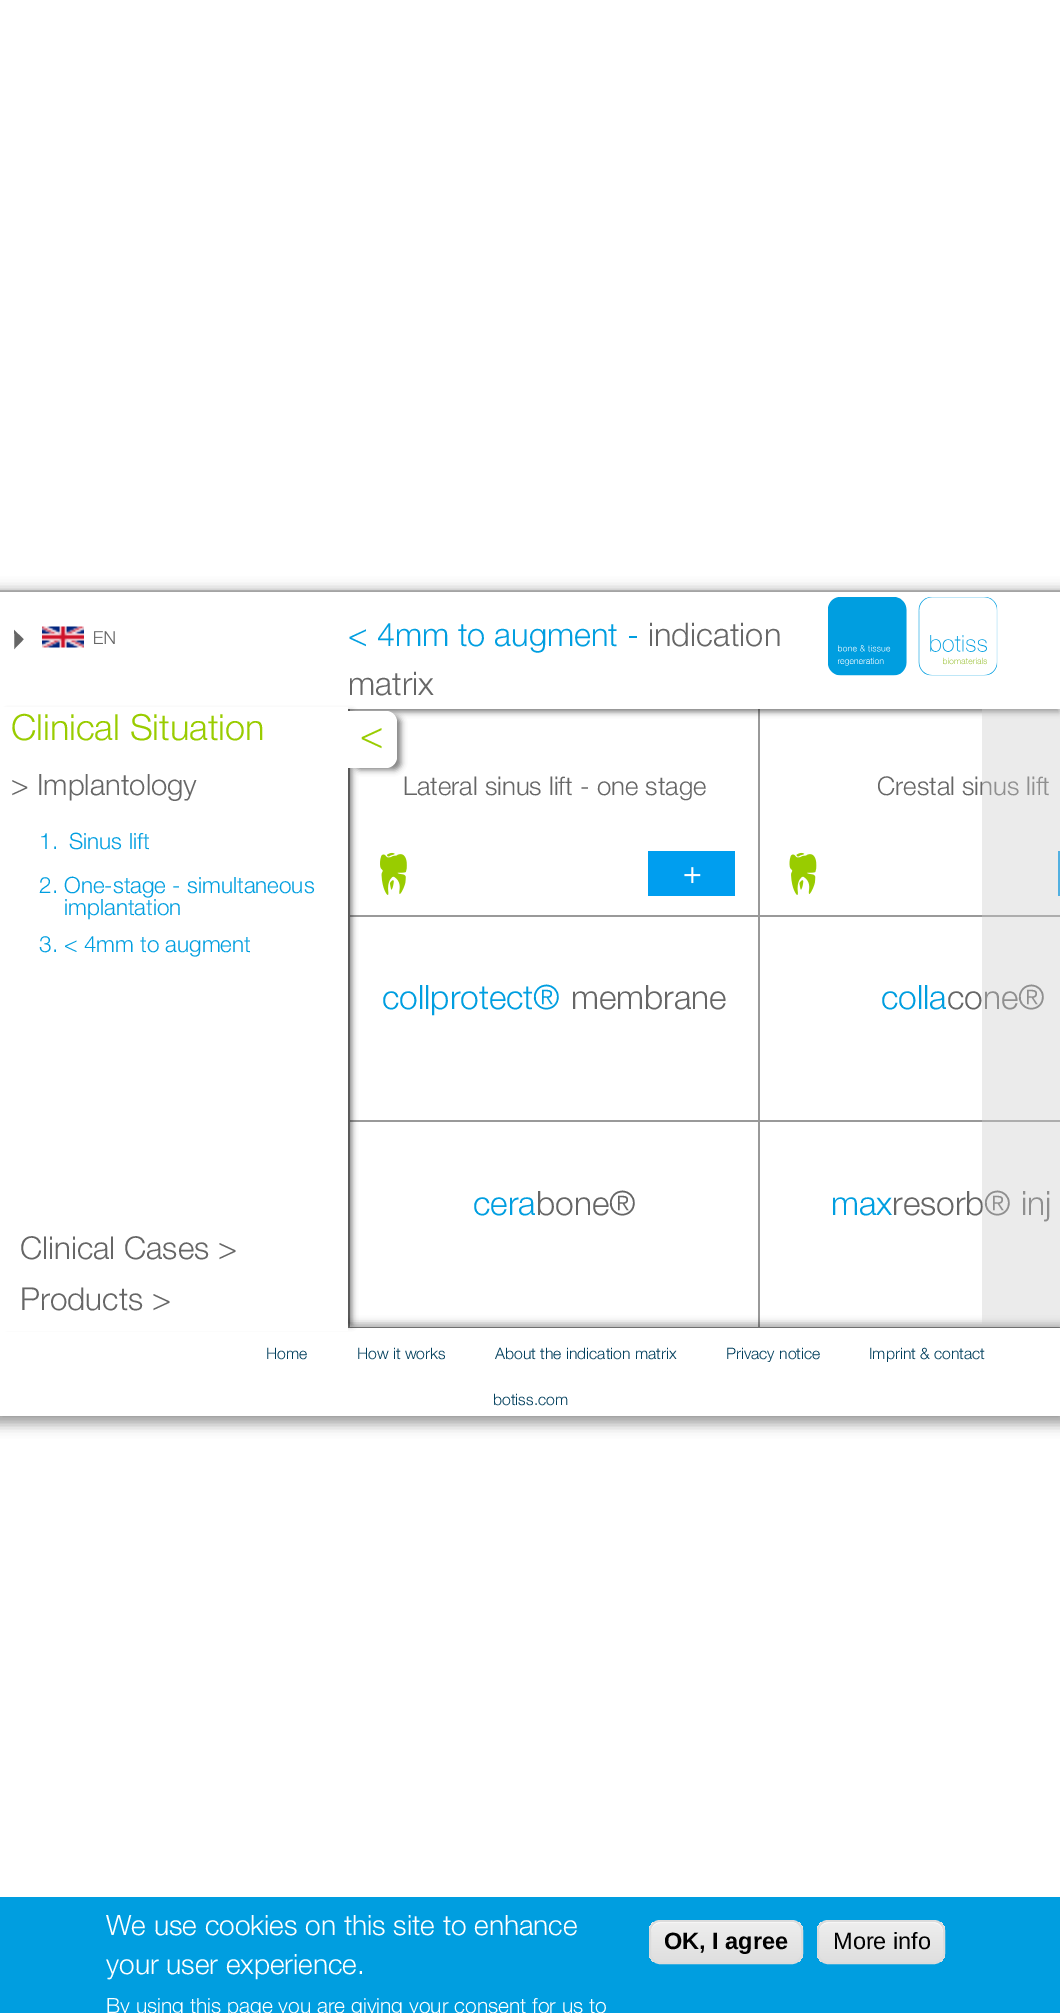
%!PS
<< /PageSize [1060 2013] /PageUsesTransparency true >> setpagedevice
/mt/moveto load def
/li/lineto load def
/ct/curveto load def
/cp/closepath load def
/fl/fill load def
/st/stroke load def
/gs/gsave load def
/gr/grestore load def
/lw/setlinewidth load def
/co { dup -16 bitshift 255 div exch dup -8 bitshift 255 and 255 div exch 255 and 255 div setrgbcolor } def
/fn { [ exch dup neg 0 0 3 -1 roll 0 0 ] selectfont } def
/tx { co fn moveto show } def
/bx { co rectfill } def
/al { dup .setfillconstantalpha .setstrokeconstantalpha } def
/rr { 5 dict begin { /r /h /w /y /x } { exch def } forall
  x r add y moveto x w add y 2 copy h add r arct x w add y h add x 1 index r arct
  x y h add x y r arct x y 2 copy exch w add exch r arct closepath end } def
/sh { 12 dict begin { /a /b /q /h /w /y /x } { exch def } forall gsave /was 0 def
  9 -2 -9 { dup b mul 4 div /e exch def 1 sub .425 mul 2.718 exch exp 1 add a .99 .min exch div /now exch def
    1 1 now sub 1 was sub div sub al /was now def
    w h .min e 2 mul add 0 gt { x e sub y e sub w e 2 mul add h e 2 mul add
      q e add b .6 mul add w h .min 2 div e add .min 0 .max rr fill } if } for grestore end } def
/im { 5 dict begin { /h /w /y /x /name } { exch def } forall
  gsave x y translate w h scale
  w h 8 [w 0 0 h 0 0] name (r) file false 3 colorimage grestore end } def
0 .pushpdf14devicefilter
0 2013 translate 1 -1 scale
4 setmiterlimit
0 0 1060 2013 16#FFFFFF bx
0 590 1060 2 16#CCCCCC bx
16#000000 co
-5 590 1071 835 0 6 .33 sh
350 709 710 618 16#FFFFFF bx
348 709 2 2 16#FFFFFF bx
758 915 302 2 16#999999 bx
758 709 2 208 16#999999 bx
348 915 412 2 16#999999 bx
348 709 2 208 16#999999 bx
16#000000 co
2 599 1057 113 0 3 .5 sh
0 592 1060 117 16#FFFFFF bx
(media/1.raw) 42 626 42 22 im
(media/2.raw) 94 631 21 13 im
(media/3.raw) 828 597 170 79 im
758 1120 302 2 16#999999 bx
758 915 2 207 16#999999 bx
348 1120 412 2 16#999999 bx
348 915 2 207 16#999999 bx
758 1327 302 1 16#999999 bx
758 1120 2 208 16#999999 bx
348 1327 412 1 16#999999 bx
348 1120 2 208 16#999999 bx
16#000000 co
-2 1323 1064 91 0 3.5 .3 sh
0 1328 1060 88 16#FFFFFF bx
16#000000 co
7 712 345 613 0 3 .5 sh
0 707 348 624 16#FFFFFF bx
16#000000 co
354 716 47 54 7 3 .5 sh
16#FFFFFF co
347 711 mt 386 711 li 392 711 397 716 397 722 ct 397 757 li 397 763 392 768 386 768 ct 347 768 li cp fl
(media/4.raw) 380 851 355 45 im
(media/5.raw) 789 851 271 45 im
0 1897 1060 116 16#009EE0 bx
gs
649 1920 154 44 11 rr clip newpath
gs 649 1922 mt 803 1922 li 803 1962 li 649 1962 li cp clip newpath
<< /ShadingType 2 /ColorSpace /DeviceRGB /Coords [726 1922 726 1962] /Extend [true true] /Function << /FunctionType 3 /Domain [0 1] /Functions [<< /FunctionType 2 /Domain [0 1] /C0 [.929 .929 .929] /C1 [.929 .929 .929] /N 1 >> << /FunctionType 2 /Domain [0 1] /C0 [.929 .929 .929] /C1 [.875 .875 .875] /N 1 >>] /Bounds [.05] /Encode [0 1 0 1] >> >> shfill gr
gr
16#FFFFFF co
660 1923 mt 793 1923 li 798 1923 802 1927 802 1932 ct 802 1916 779 1922 771 1922 ct 682 1922 li 674 1922 651 1916 651 1932 ct 651 1927 655 1923 660 1923 ct cp fl
16#DCDCDC co
2 lw
650 1921 152 42 10 rr st
gs
817 1920 128 44 11 rr clip newpath
gs 817 1922 mt 945 1922 li 945 1962 li 817 1962 li cp clip newpath
<< /ShadingType 2 /ColorSpace /DeviceRGB /Coords [881 1922 881 1962] /Extend [true true] /Function << /FunctionType 3 /Domain [0 1] /Functions [<< /FunctionType 2 /Domain [0 1] /C0 [.929 .929 .929] /C1 [.929 .929 .929] /N 1 >> << /FunctionType 2 /Domain [0 1] /C0 [.929 .929 .929] /C1 [.875 .875 .875] /N 1 >>] /Bounds [.05] /Encode [0 1 0 1] >> >> shfill gr
gr
16#FFFFFF co
828 1923 mt 934 1923 li 939 1923 943 1927 943 1932 ct 943 1918 925 1922 916 1922 ct 846 1922 li 837 1922 819 1918 819 1932 ct 819 1927 823 1923 828 1923 ct cp fl
16#DCDCDC co
818 1921 126 42 10 rr st
/DejaVuSans-Regular 18 fn
16#666666 co
gs 6 638 translate 44 rotate 0 0 mt (◥) show gr
(< 4mm to augment -) 348 646 /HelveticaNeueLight-Light 32.5 16#009EE0 tx
(indication) 648 646 /HelveticaNeueLight-Light 32.5 16#666666 tx
(matrix) 348 695 /HelveticaNeueLight-Light 32.5 16#666666 tx
(Clinical Situation) 11 740 /HelveticaNeueLight-Light 36 16#99CC00 tx
(> Implantology) 11 795 /HelveticaNeueLight-Light 29.25 16#666666 tx
(1.) 39 849 /HelveticaNeueLight-Light 22.5 16#009EE0 tx
(Sinus lift) 69 849 /HelveticaNeueLight-Light 22.5 16#009EE0 tx
(2.) 39 893 /HelveticaNeueLight-Light 22.5 16#009EE0 tx
(One-stage - simultaneous) 64 893 /HelveticaNeueLight-Light 22.5 16#009EE0 tx
(implantation) 64 915 /HelveticaNeueLight-Light 22.5 16#009EE0 tx
(3.) 39 952 /HelveticaNeueLight-Light 22.5 16#009EE0 tx
(< 4mm to augment) 64 952 /HelveticaNeueLight-Light 22.5 16#009EE0 tx
(Clinical Cases >) 20 1259 /HelveticaNeueLight-Light 31.5 16#666666 tx
(Products >) 20 1310 /HelveticaNeueLight-Light 31.5 16#666666 tx
(<) 360 748 /HelveticaNeueLight-Light 39 16#99CC00 tx
(Lateral sinus lift - one stage) 403 795 /HelveticaNeueLight-Light 25.75 16#666666 tx
(Crestal sinus lift) 877 795 /HelveticaNeueLight-Light 25.75 16#666666 tx
(collprotect®) 382 1009 /HelveticaNeueLight-Light 33.5 16#009EE0 tx
(membrane) 571 1009 /HelveticaNeueLight-Light 33.5 16#666666 tx
(colla) 881 1009 /HelveticaNeueLight-Light 33.5 16#009EE0 tx
(cone®) 947 1009 /HelveticaNeueLight-Light 33.5 16#666666 tx
(cera) 473 1215 /HelveticaNeueLight-Light 33.5 16#009EE0 tx
(bone®) 536 1215 /HelveticaNeueLight-Light 33.5 16#666666 tx
(max) 831 1215 /HelveticaNeueLight-Light 33.5 16#009EE0 tx
(resorb® inj) 892 1215 /HelveticaNeueLight-Light 33.5 16#666666 tx
0.4 al
982 709 78 616 16#CCCCCC bx
1 al
(Home) 266 1359 /HelveticaNeueLight-Light 15.75 16#003E5C tx
(How it works) 357 1359 /HelveticaNeueLight-Light 15.75 16#003E5C tx
(About the indication matrix) 495 1359 /HelveticaNeueLight-Light 15.75 16#003E5C tx
(Privacy notice) 726 1359 /HelveticaNeueLight-Light 15.75 16#003E5C tx
(Imprint & contact) 869 1359 /HelveticaNeueLight-Light 15.75 16#003E5C tx
(botiss.com) 493 1405 /HelveticaNeueLight-Light 15.75 16#003E5C tx
(We use cookies on this site to enhance) 106 1935 /HelveticaNeueLight-Light 28 16#FFFFFF tx
(your user experience.) 106 1974 /HelveticaNeueLight-Light 28 16#FFFFFF tx
(By using this page you are giving your consent for us to) 106 2013 /HelveticaNeueLight-Light 21 16#FFFFFF tx
(OK, I agree) 664 1949 /LiberationSans-Bold 23.5 16#000000 tx
(More info) 833 1949 /LiberationSans-Regular 23.5 16#000000 tx
.poppdf14devicefilter showpage
